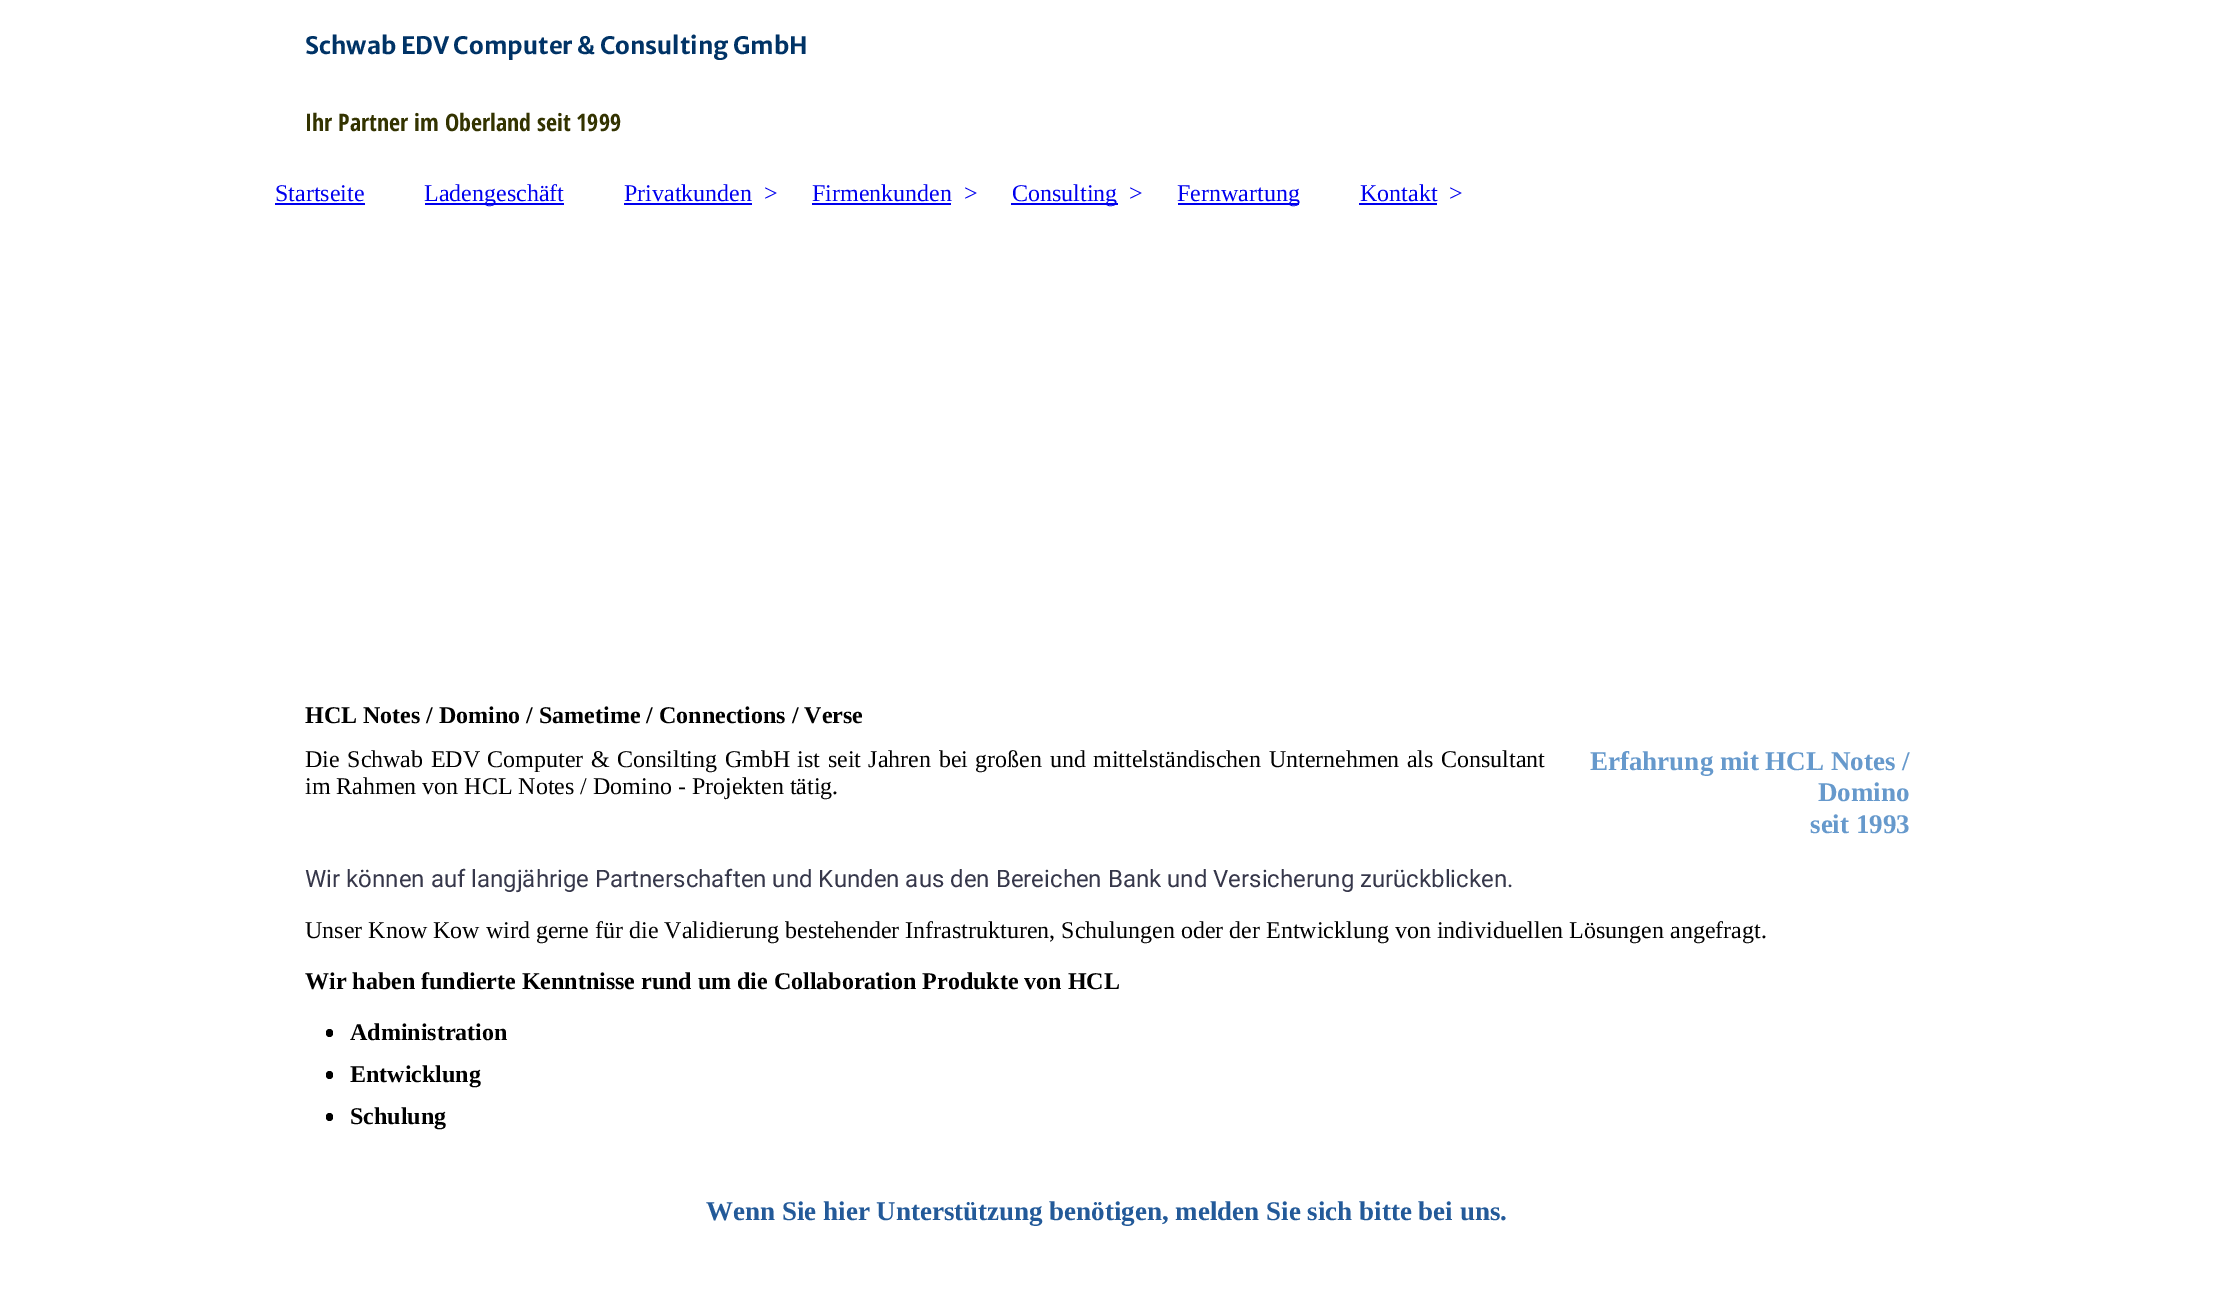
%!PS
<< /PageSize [2214 1304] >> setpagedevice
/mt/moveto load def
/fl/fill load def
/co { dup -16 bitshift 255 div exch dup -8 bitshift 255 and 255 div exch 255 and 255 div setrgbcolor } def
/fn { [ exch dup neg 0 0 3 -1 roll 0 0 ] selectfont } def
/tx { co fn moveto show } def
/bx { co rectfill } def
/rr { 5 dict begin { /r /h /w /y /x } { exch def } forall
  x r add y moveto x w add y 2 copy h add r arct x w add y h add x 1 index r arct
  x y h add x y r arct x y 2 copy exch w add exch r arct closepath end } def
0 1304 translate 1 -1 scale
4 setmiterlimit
0 0 2214 1304 16#FFFFFF bx
275 203 90 2 16#0000EE bx
425 203 139 2 16#0000EE bx
624 203 128 2 16#0000EE bx
812 203 139 2 16#0000EE bx
1011 203 107 2 16#0000EE bx
1178 203 121 2 16#0000EE bx
1359 203 78 2 16#0000EE bx
16#000000 co
326 1029 7 8 3.5 rr fl
326 1071 7 8 3.5 rr fl
326 1113 7 8 3.5 rr fl
(Schwab EDV Computer & Consulting GmbH) 305 54 /MerriweatherSans-Bold 24 16#003366 tx
(Ihr Partner im Oberland seit 1999) 305 131 /OpenSansCondensed-Bold 24 16#333300 tx
(Startseite) 275 201 /LiberationSerif-Regular 24 16#0000EE tx
(Ladengeschäft) 424 201 /LiberationSerif-Regular 24 16#0000EE tx
(Privatkunden) 624 201 /LiberationSerif-Regular 24 16#0000EE tx
(>) 764 201 /LiberationSerif-Regular 24 16#0000EE tx
(Firmenkunden) 812 201 /LiberationSerif-Regular 24 16#0000EE tx
(>) 964 201 /LiberationSerif-Regular 24 16#0000EE tx
(Consulting) 1012 201 /LiberationSerif-Regular 24 16#0000EE tx
(>) 1129 201 /LiberationSerif-Regular 24 16#0000EE tx
(Fernwartung) 1177 201 /LiberationSerif-Regular 24 16#0000EE tx
(Kontakt) 1360 201 /LiberationSerif-Regular 24 16#0000EE tx
(>) 1449 201 /LiberationSerif-Regular 24 16#0000EE tx
(HCL Notes / Domino / Sametime / Connections / Verse) 305 723 /LiberationSerif-Bold 24 16#000000 tx
/LiberationSerif-Regular 24 fn
305 767 mt 1.5 0 32 (Die Schwab EDV Computer & Consilting GmbH ist seit Jahren bei großen und mittelständischen Unternehmen als Consultant) widthshow
(im Rahmen von HCL Notes / Domino - Projekten tätig.) 305 794 /LiberationSerif-Regular 24 16#000000 tx
(Erfahrung mit HCL Notes /) 1590 770 /LiberationSerif-Bold 27 16#6699CC tx
(Domino) 1818 801 /LiberationSerif-Bold 27 16#6699CC tx
(seit 1993) 1810 833 /LiberationSerif-Bold 27 16#6699CC tx
(Wir können auf langjährige Partnerschaften und Kunden aus den Bereichen Bank und Versicherung zurückblicken.) 305 887 /Roboto-Regular 24 16#36374A tx
(Unser Know Kow wird gerne für die Validierung bestehender Infrastrukturen, Schulungen oder der Entwicklung von individuellen Lösungen angefragt.) 305 938 /LiberationSerif-Regular 24 16#000000 tx
(Wir haben fundierte Kenntnisse rund um die Collaboration Produkte von HCL) 305 989 /LiberationSerif-Bold 24 16#000000 tx
(Administration) 350 1040 /LiberationSerif-Bold 24 16#000000 tx
(Entwicklung) 350 1082 /LiberationSerif-Bold 24 16#000000 tx
(Schulung) 350 1124 /LiberationSerif-Bold 24 16#000000 tx
(Wenn Sie hier Unterstützung benötigen, melden Sie sich bitte bei uns.) 706 1220 /LiberationSerif-Bold 27 16#235A99 tx
showpage
